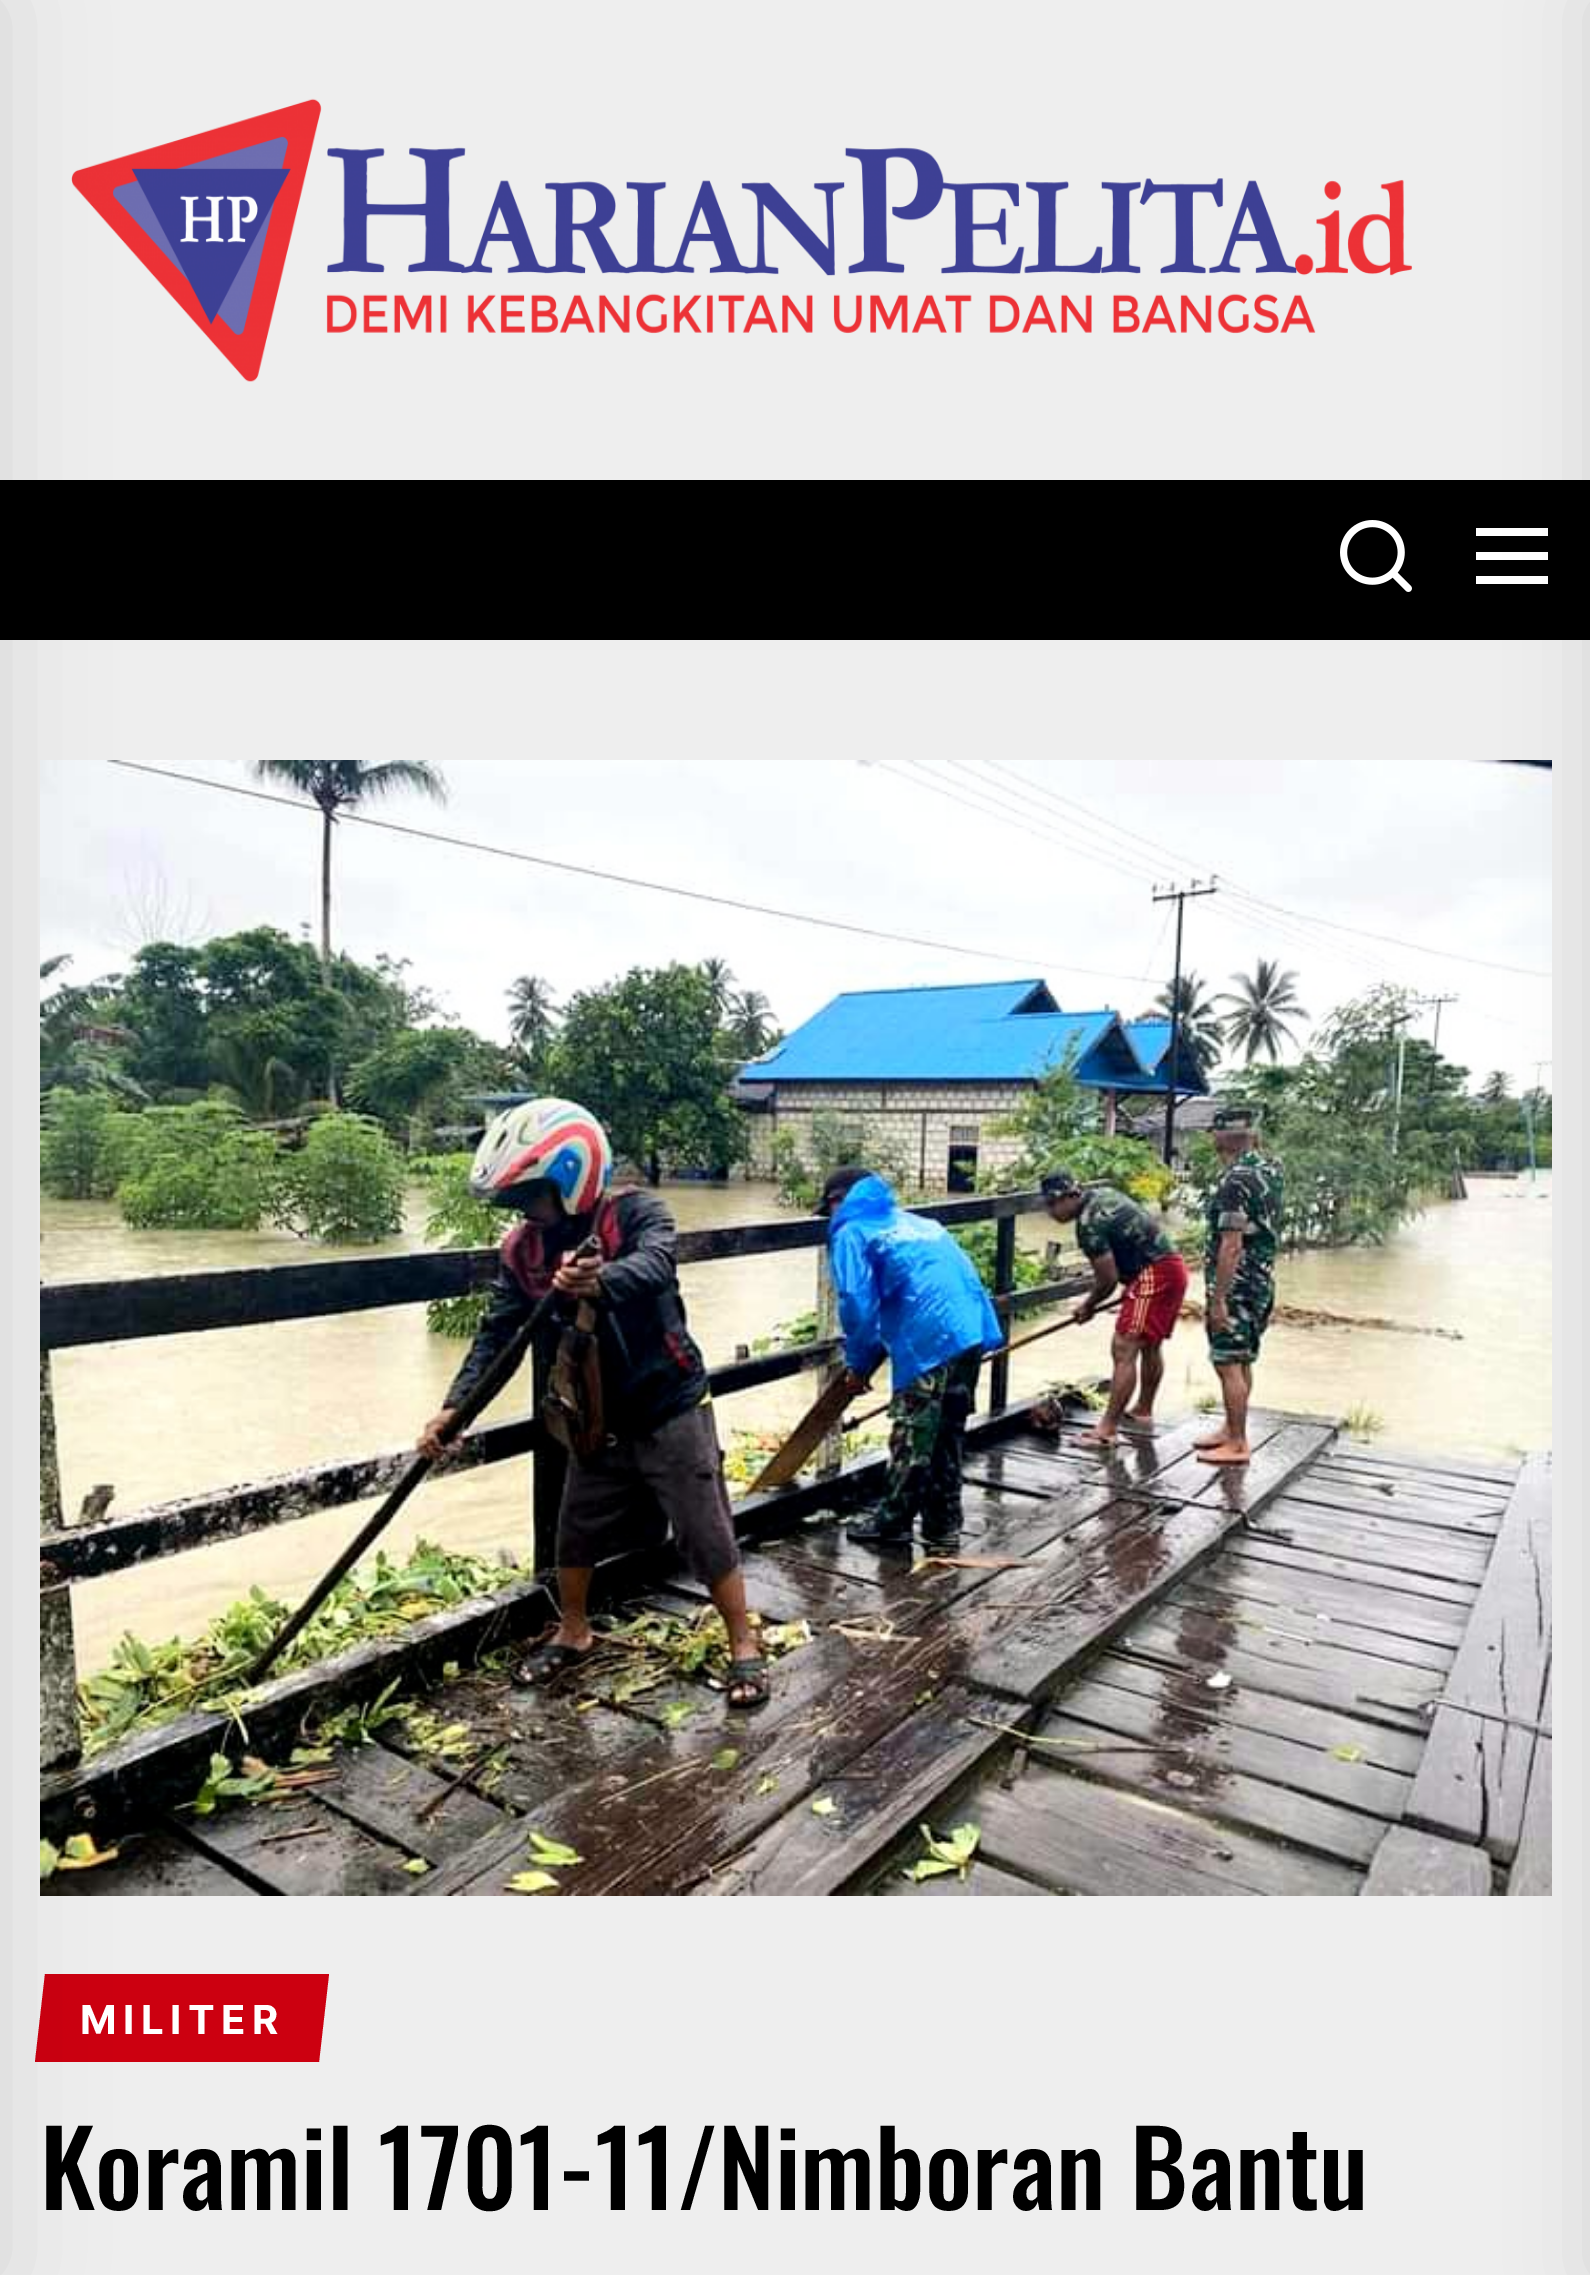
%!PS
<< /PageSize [1590 2275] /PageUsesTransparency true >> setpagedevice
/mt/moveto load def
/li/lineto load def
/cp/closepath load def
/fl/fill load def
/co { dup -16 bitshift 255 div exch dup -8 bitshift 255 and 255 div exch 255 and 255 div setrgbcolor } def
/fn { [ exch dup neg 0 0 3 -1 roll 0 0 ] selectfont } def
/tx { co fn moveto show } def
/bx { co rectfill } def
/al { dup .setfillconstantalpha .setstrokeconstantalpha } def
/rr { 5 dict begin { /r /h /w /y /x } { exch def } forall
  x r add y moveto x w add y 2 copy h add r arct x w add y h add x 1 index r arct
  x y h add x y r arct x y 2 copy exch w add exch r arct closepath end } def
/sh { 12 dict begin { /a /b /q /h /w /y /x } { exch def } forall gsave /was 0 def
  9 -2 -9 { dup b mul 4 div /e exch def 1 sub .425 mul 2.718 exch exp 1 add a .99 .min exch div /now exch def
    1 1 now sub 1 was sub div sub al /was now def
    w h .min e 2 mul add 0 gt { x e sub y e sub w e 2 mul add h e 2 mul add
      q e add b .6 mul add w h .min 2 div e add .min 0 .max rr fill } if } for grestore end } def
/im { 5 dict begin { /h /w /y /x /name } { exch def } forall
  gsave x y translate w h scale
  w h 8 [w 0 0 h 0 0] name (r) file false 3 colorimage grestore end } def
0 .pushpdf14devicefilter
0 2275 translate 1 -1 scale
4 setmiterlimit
0 0 1590 2275 16#EEEEEE bx
(media/1.raw) 71 98 1342 284 im
0 480 1590 160 16#000000 bx
(media/3.raw) 40 760 1512 1136 im
16#CC0010 co
45 1974 mt 329 1974 li 319 2062 li 35 2062 li cp fl
16#000000 co
-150 0 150 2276 0 50 .1 sh
16#FFFFFF co
1476 528 mt 1476 536 li 1548 536 li 1548 528 li cp 1476 560 mt 1548 560 li 1548 552 li 1476 552 li cp 1476 584 mt 1548 584 li 1548 576 li 1476 576 li cp fl
16#000000 co
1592 0 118 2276 0 40 .1 sh
(media/2.raw) 1340 520 72 72 im
/Inter-Bold 40 fn
16#FFFFFF co
80 2034 mt 6.5 0 (MILITER) ashow
(Koramil 1701-11/Nimboran Bantu) 40 2210 /Oswald-Medium 104 16#000000 tx
.poppdf14devicefilter showpage
